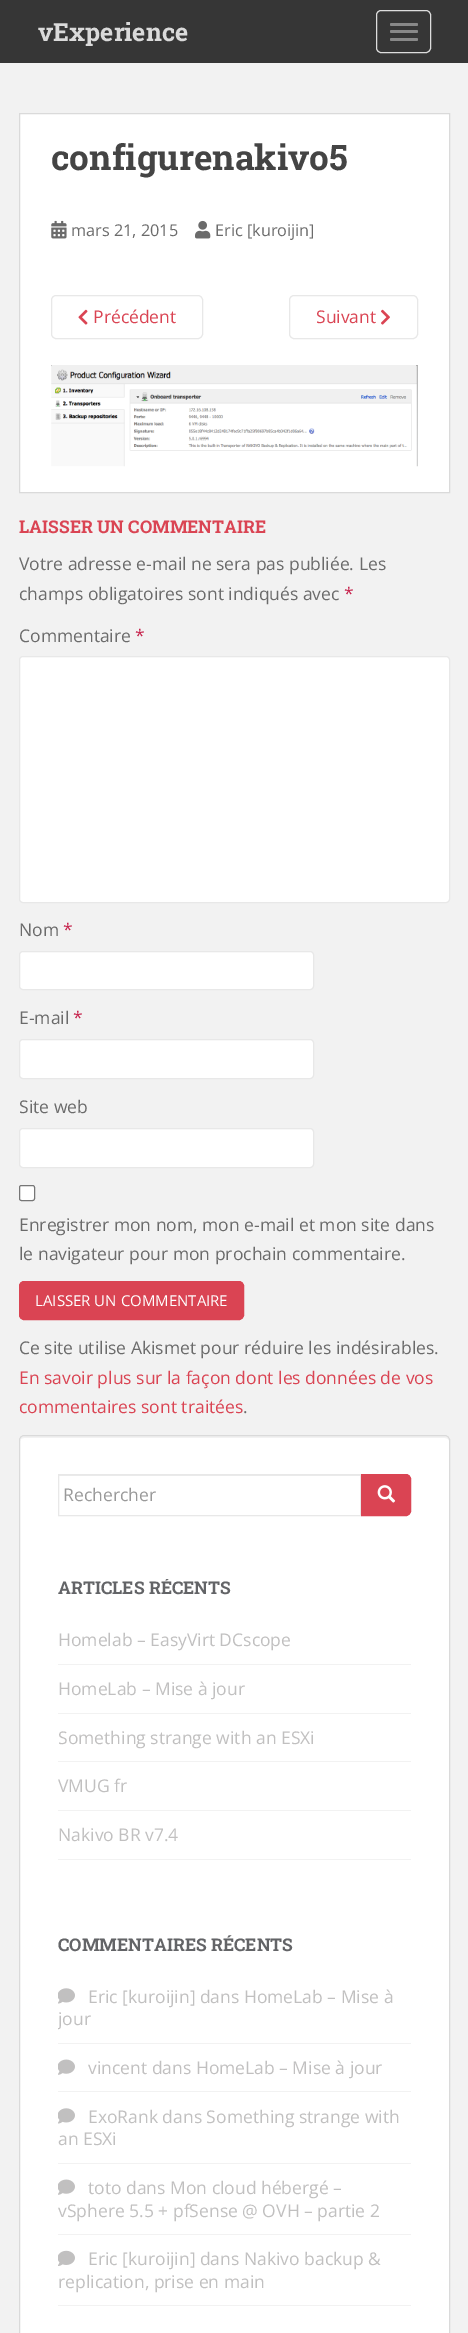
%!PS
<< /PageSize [468 2333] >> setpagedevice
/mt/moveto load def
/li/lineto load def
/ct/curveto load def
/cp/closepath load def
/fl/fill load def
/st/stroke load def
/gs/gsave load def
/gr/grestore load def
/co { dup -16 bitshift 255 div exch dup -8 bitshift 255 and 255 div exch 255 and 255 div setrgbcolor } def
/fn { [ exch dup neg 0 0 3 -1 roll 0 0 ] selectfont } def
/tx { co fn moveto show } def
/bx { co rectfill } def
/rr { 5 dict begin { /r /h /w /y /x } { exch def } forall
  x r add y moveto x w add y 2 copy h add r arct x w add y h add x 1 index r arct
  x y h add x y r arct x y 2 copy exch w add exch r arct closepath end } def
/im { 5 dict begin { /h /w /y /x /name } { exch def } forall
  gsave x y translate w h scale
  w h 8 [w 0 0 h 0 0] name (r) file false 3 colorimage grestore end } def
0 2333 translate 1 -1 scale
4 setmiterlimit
0 0 468 2333 16#F2F2F2 bx
0 0 468 63 16#363636 bx
16#DDDDDD co
376.5 10.5 54 42 4.5 rr st
16#888888 co
390 23 28 3 1.5 rr fl
390 30 28 3 1.5 rr fl
390 38 28 3 1.5 rr fl
16#FFFFFF co
19.5 113.5 mt 449.5 113.5 li 449.5 492.5 li 19.5 492.5 li cp gs fl gr
16#DADADA co
st
(media/1.raw) 51 220 16 19 im
(media/2.raw) 195 220 16 19 im
16#E8E8E8 co
51.5 295.5 151 43 4.5 rr st
(media/3.raw) 78 309 10 16 im
289.5 295.5 128 43 4.5 rr st
(media/4.raw) 381 309 9 16 im
(media/5.raw) 51 365 367 102 im
16#FFFFFF co
19.5 656.5 430 246 3.5 rr gs fl gr
16#E8E8E8 co
st
16#FFFFFF co
19.5 951.5 294 38 3.5 rr gs fl gr
16#E8E8E8 co
st
16#FFFFFF co
19.5 1039.5 294 39 3.5 rr gs fl gr
16#E8E8E8 co
st
16#FFFFFF co
19.5 1128.5 294 39 3.5 rr gs fl gr
16#E8E8E8 co
st
16#FFFFFF co
19.5 1185.5 15 15 2 rr gs fl gr
16#767676 co
st
16#DA4453 co
19.5 1281.5 224 38 4.5 rr gs fl gr
st
16#FFFFFF co
19 1435 431 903 5 rr fl
16#F2F2F2 co
24 1438 mt 445 1438 li 447 1438 449 1439 449 1441 ct 449 1438 448 1436 445 1436 ct 24 1436 li 23 1436 21 1437 21 1438 ct 20 1441 li 20 1439 22 1438 24 1438 ct cp fl
16#DADADA co
19.5 1435.5 430 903 4.5 rr st
59 1475 301 1 16#ECECEC bx
16#E8E8E8 co
58.5 1474.5 302 41 rectstroke
16#DA4453 co
361.5 1474.5 mt 406 1474.5 li 408.5 1474.5 410.5 1476.5 410.5 1479 ct 410.5 1511 li 410.5 1513.5 408.5 1515.5 406 1515.5 ct 361.5 1515.5 li cp gs fl gr
st
(media/6.raw) 377 1485 19 18 im
58 1664 353 1 16#F2F2F2 bx
58 1713 353 1 16#F2F2F2 bx
58 1761 353 1 16#F2F2F2 bx
58 1810 353 1 16#F2F2F2 bx
58 1859 353 1 16#F2F2F2 bx
58 2043 353 1 16#F2F2F2 bx
(media/7.raw) 58 1988 17 16 im
58 2091 353 1 16#F2F2F2 bx
(media/8.raw) 58 2059 17 16 im
58 2163 353 1 16#F2F2F2 bx
(media/7.raw) 58 2108 17 16 im
58 2234 353 1 16#F2F2F2 bx
(media/8.raw) 58 2179 17 16 im
58 2305 353 1 16#F2F2F2 bx
(media/9.raw) 58 2250 17 16 im
(vExperience) 38 41 /RobotoSlab-Bold 25 16#DADADA tx
(configurenakivo5) 51 170 /RobotoSlab-Bold 35 16#444444 tx
(mars 21, 2015) 71 236 /OpenSans-Regular 16.25 16#6B6B6B tx
(Eric [kuroijin]) 215 236 /OpenSans-Regular 16.25 16#6B6B6B tx
(Précédent) 93 323 /OpenSans-Regular 17.5 16#DA4453 tx
(Suivant) 316 323 /OpenSans-Regular 17.5 16#DA4453 tx
(LAISSER UN COMMENTAIRE) 19 533 /RobotoSlab-Bold 17.5 16#DA4453 tx
(Votre adresse e-mail ne sera pas publiée. Les) 19 570 /OpenSans-Regular 17.5 16#6B6B6B tx
(champs obligatoires sont indiqués avec) 19 600 /OpenSans-Regular 17.5 16#6B6B6B tx
(*) 344 600 /OpenSans-Regular 17.5 16#C7254E tx
(Commentaire) 19 642 /OpenSans-Regular 17.5 16#6B6B6B tx
(*) 135 642 /OpenSans-Regular 17.5 16#C7254E tx
(Nom) 19 936 /OpenSans-Regular 17.5 16#6B6B6B tx
(*) 63 936 /OpenSans-Regular 17.5 16#C7254E tx
(E-mail) 19 1024 /OpenSans-Regular 17.5 16#6B6B6B tx
(*) 73 1024 /OpenSans-Regular 17.5 16#C7254E tx
(Site web) 19 1113 /OpenSans-Regular 17.5 16#6B6B6B tx
(Enregistrer mon nom, mon e-mail et mon site dans) 19 1231 /OpenSans-Regular 17.5 16#6B6B6B tx
(le navigateur pour mon prochain commentaire.) 19 1260 /OpenSans-Regular 17.5 16#6B6B6B tx
(LAISSER UN COMMENTAIRE) 35 1306 /OpenSans-Regular 15 16#FFFFFF tx
(Ce site utilise Akismet pour réduire les indésirables.) 19 1354 /OpenSans-Regular 17.5 16#6B6B6B tx
(En savoir plus sur la façon dont les données de vos) 19 1384 /OpenSans-Regular 17.5 16#DA4453 tx
(commentaires sont traitées) 19 1413 /OpenSans-Regular 17.5 16#DA4453 tx
(.) 243 1413 /OpenSans-Regular 17.5 16#6B6B6B tx
(Rechercher) 63 1501 /OpenSans-Regular 17.5 16#999999 tx
gs
58 1579 353 294 rectclip
(ARTICLES RÉCENTS) 58 1594 /RobotoSlab-Bold 17.5 16#636467 tx
gr
(Homelab – EasyVirt DCscope) 58 1646 /OpenSans-Regular 17.5 16#C1C0C0 tx
(HomeLab – Mise à jour) 58 1695 /OpenSans-Regular 17.5 16#C1C0C0 tx
(Something strange with an ESXi) 58 1744 /OpenSans-Regular 17.5 16#C1C0C0 tx
(VMUG fr) 58 1792 /OpenSans-Regular 17.5 16#C1C0C0 tx
(Nakivo BR v7.4) 58 1841 /OpenSans-Regular 17.5 16#C1C0C0 tx
(COMMENTAIRES RÉCENTS) 58 1951 /RobotoSlab-Bold 17.5 16#636467 tx
(Eric [kuroijin] dans HomeLab – Mise à) 88 2003 /OpenSans-Regular 17.5 16#C1C0C0 tx
gs
58 1935 353 384 rectclip
(jour) 58 2025 /OpenSans-Regular 17.5 16#C1C0C0 tx
gr
(vincent dans HomeLab – Mise à jour) 88 2074 /OpenSans-Regular 17.5 16#C1C0C0 tx
(ExoRank dans Something strange with) 88 2123 /OpenSans-Regular 17.5 16#C1C0C0 tx
(an ESXi) 58 2145 /OpenSans-Regular 17.5 16#C1C0C0 tx
(toto dans Mon cloud hébergé –) 88 2194 /OpenSans-Regular 17.5 16#C1C0C0 tx
(vSphere 5.5 + pfSense @ OVH – partie 2) 58 2217 /OpenSans-Regular 17.5 16#C1C0C0 tx
(Eric [kuroijin] dans Nakivo backup &) 88 2265 /OpenSans-Regular 17.5 16#C1C0C0 tx
(replication, prise en main) 58 2288 /OpenSans-Regular 17.5 16#C1C0C0 tx
showpage
